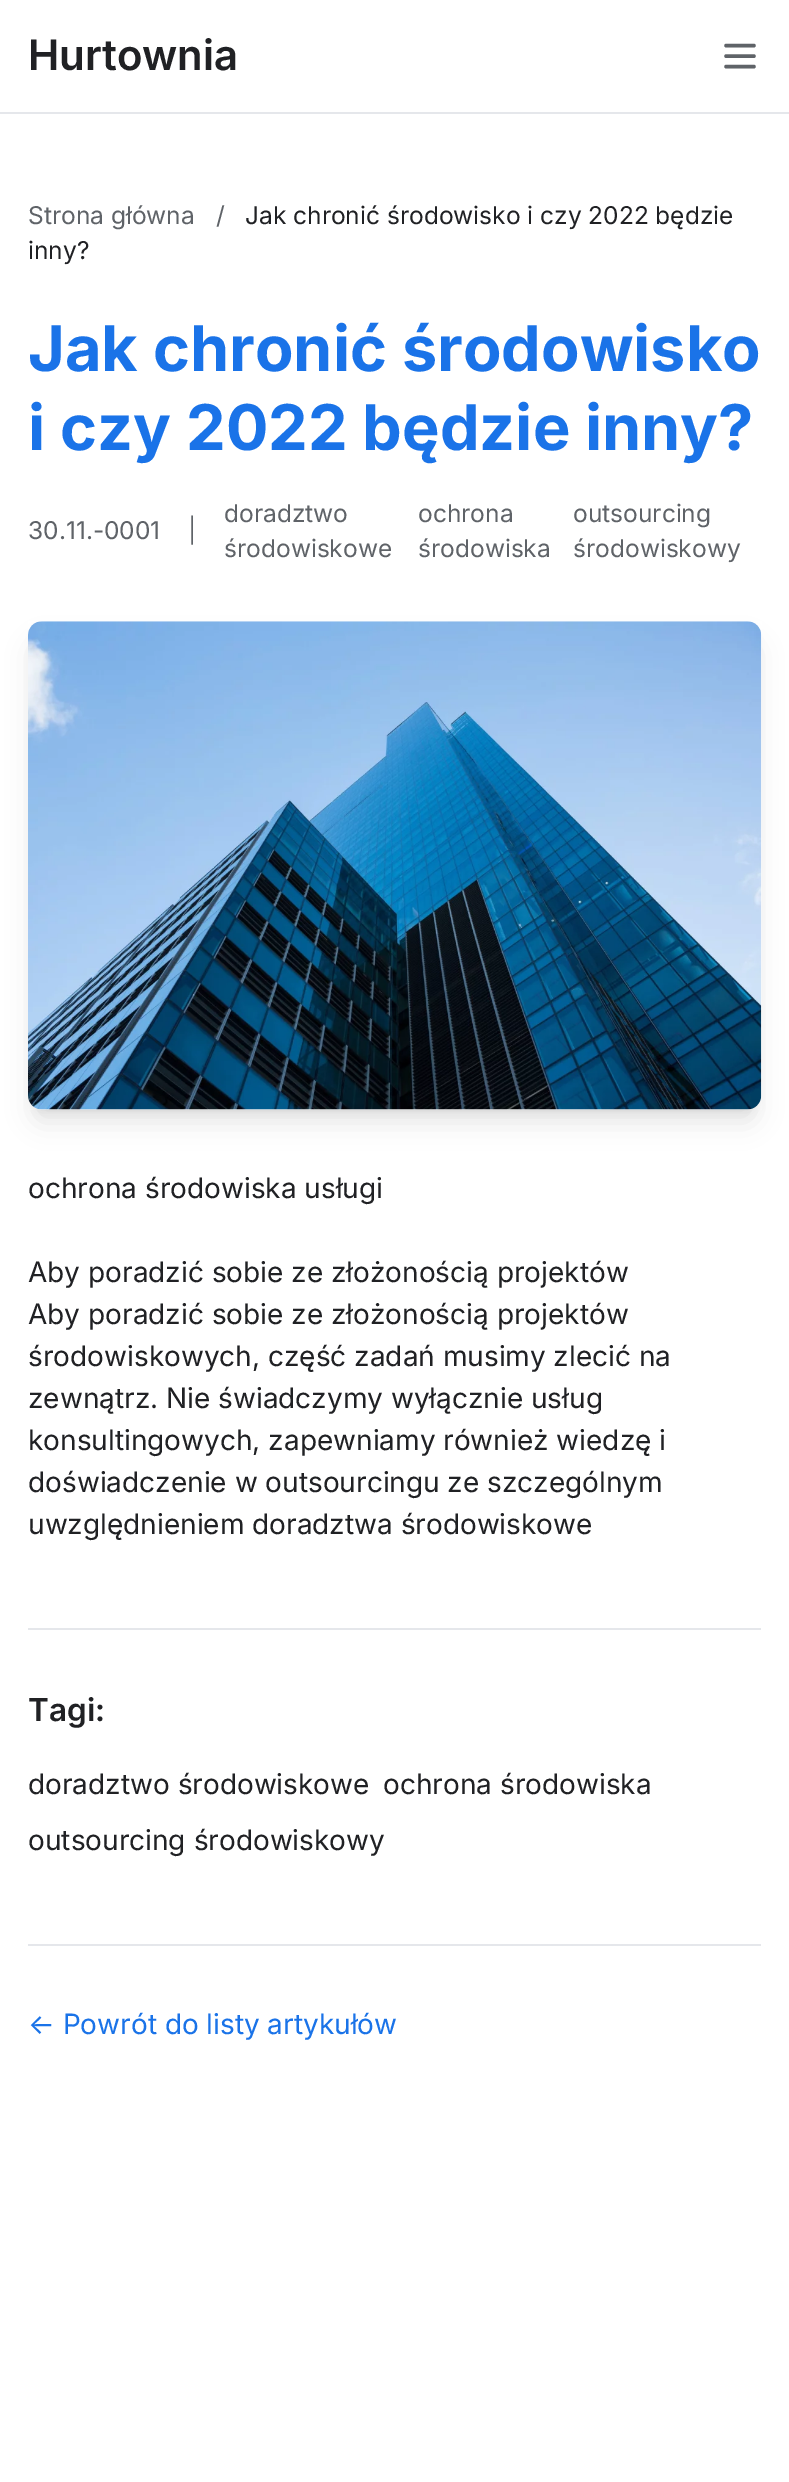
%!PS
<< /PageSize [789 2482] /PageUsesTransparency true >> setpagedevice
/mt/moveto load def
/li/lineto load def
/st/stroke load def
/lw/setlinewidth load def
/co { dup -16 bitshift 255 div exch dup -8 bitshift 255 and 255 div exch 255 and 255 div setrgbcolor } def
/fn { [ exch dup neg 0 0 3 -1 roll 0 0 ] selectfont } def
/tx { co fn moveto show } def
/bx { co rectfill } def
/al { dup .setfillconstantalpha .setstrokeconstantalpha } def
/rr { 5 dict begin { /r /h /w /y /x } { exch def } forall
  x r add y moveto x w add y 2 copy h add r arct x w add y h add x 1 index r arct
  x y h add x y r arct x y 2 copy exch w add exch r arct closepath end } def
/sh { 12 dict begin { /a /b /q /h /w /y /x } { exch def } forall gsave /was 0 def
  9 -2 -9 { dup b mul 4 div /e exch def 1 sub .425 mul 2.718 exch exp 1 add a .99 .min exch div /now exch def
    1 1 now sub 1 was sub div sub al /was now def
    w h .min e 2 mul add 0 gt { x e sub y e sub w e 2 mul add h e 2 mul add
      q e add b .6 mul add w h .min 2 div e add .min 0 .max rr fill } if } for grestore end } def
/im { 5 dict begin { /h /w /y /x /name } { exch def } forall
  gsave x y translate w h scale
  w h 8 [w 0 0 h 0 0] name (r) file false 3 colorimage grestore end } def
0 .pushpdf14devicefilter
0 2482 translate 1 -1 scale
4 setmiterlimit
0 0 789 2482 16#FFFFFF bx
0 112 789 2 16#E5E7EB bx
16#5F6368 co
3.5 lw
1 setlinecap
1 setlinejoin
726 45.5 mt 754 45.5 li 726 56 mt 754 56 li 726 66.5 mt 754 66.5 li st
16#000000 co
35 635 719 475 7 5 .1 sh
33 644 723 478 9 13 .1 sh
(media/1.raw) 28 621 734 489 im
28 1628 733 2 16#E5E7EB bx
28 1944 733 2 16#E5E7EB bx
(Hurtownia) 28 70 /Inter-SemiBold 42 16#202124 tx
(Strona główna) 28 224 /Inter-Regular 24.5 16#5F6368 tx
(/) 216 224 /Inter-Regular 24.5 16#5F6368 tx
(Jak chronić środowisko i czy 2022 będzie) 245 224 /Inter-Regular 24.5 16#202124 tx
(inny?) 28 259 /Inter-Regular 24.5 16#202124 tx
(Jak chronić środowisko) 28 371 /Inter-Bold 63 16#1A73E8 tx
(i czy 2022 będzie inny?) 28 450 /Inter-Bold 63 16#1A73E8 tx
(30.11.-0001) 28 539 /Inter-Regular 24.5 16#5F6368 tx
(|) 188 539 /Inter-Regular 24.5 16#5F6368 tx
(doradztwo) 224 522 /Inter-Regular 24.5 16#5F6368 tx
(środowiskowe) 224 557 /Inter-Regular 24.5 16#5F6368 tx
(ochrona) 418 522 /Inter-Regular 24.5 16#5F6368 tx
(środowiska) 418 557 /Inter-Regular 24.5 16#5F6368 tx
(outsourcing) 573 522 /Inter-Regular 24.5 16#5F6368 tx
(środowiskowy) 573 557 /Inter-Regular 24.5 16#5F6368 tx
(ochrona środowiska usługi) 28 1198 /Inter-Regular 28 16#202124 tx
(Aby poradzić sobie ze złożonością projektów) 28 1282 /Inter-Regular 28 16#202124 tx
(Aby poradzić sobie ze złożonością projektów) 28 1324 /Inter-Regular 28 16#202124 tx
(środowiskowych, część zadań musimy zlecić na) 28 1366 /Inter-Regular 28 16#202124 tx
(zewnątrz. Nie świadczymy wyłącznie usług) 28 1408 /Inter-Regular 28 16#202124 tx
(konsultingowych, zapewniamy również wiedzę i) 28 1450 /Inter-Regular 28 16#202124 tx
(doświadczenie w outsourcingu ze szczególnym) 28 1492 /Inter-Regular 28 16#202124 tx
(uwzględnieniem doradztwa środowiskowe) 28 1534 /Inter-Regular 28 16#202124 tx
(Tagi:) 28 1721 /Inter-SemiBold 31.5 16#202124 tx
(doradztwo środowiskowe) 28 1794 /Inter-Regular 28 16#202124 tx
(ochrona środowiska) 383 1794 /Inter-Regular 28 16#202124 tx
(outsourcing środowiskowy) 28 1850 /Inter-Regular 28 16#202124 tx
(← Powrót do listy artykułów) 28 2034 /Inter-Regular 28 16#1A73E8 tx
.poppdf14devicefilter showpage
